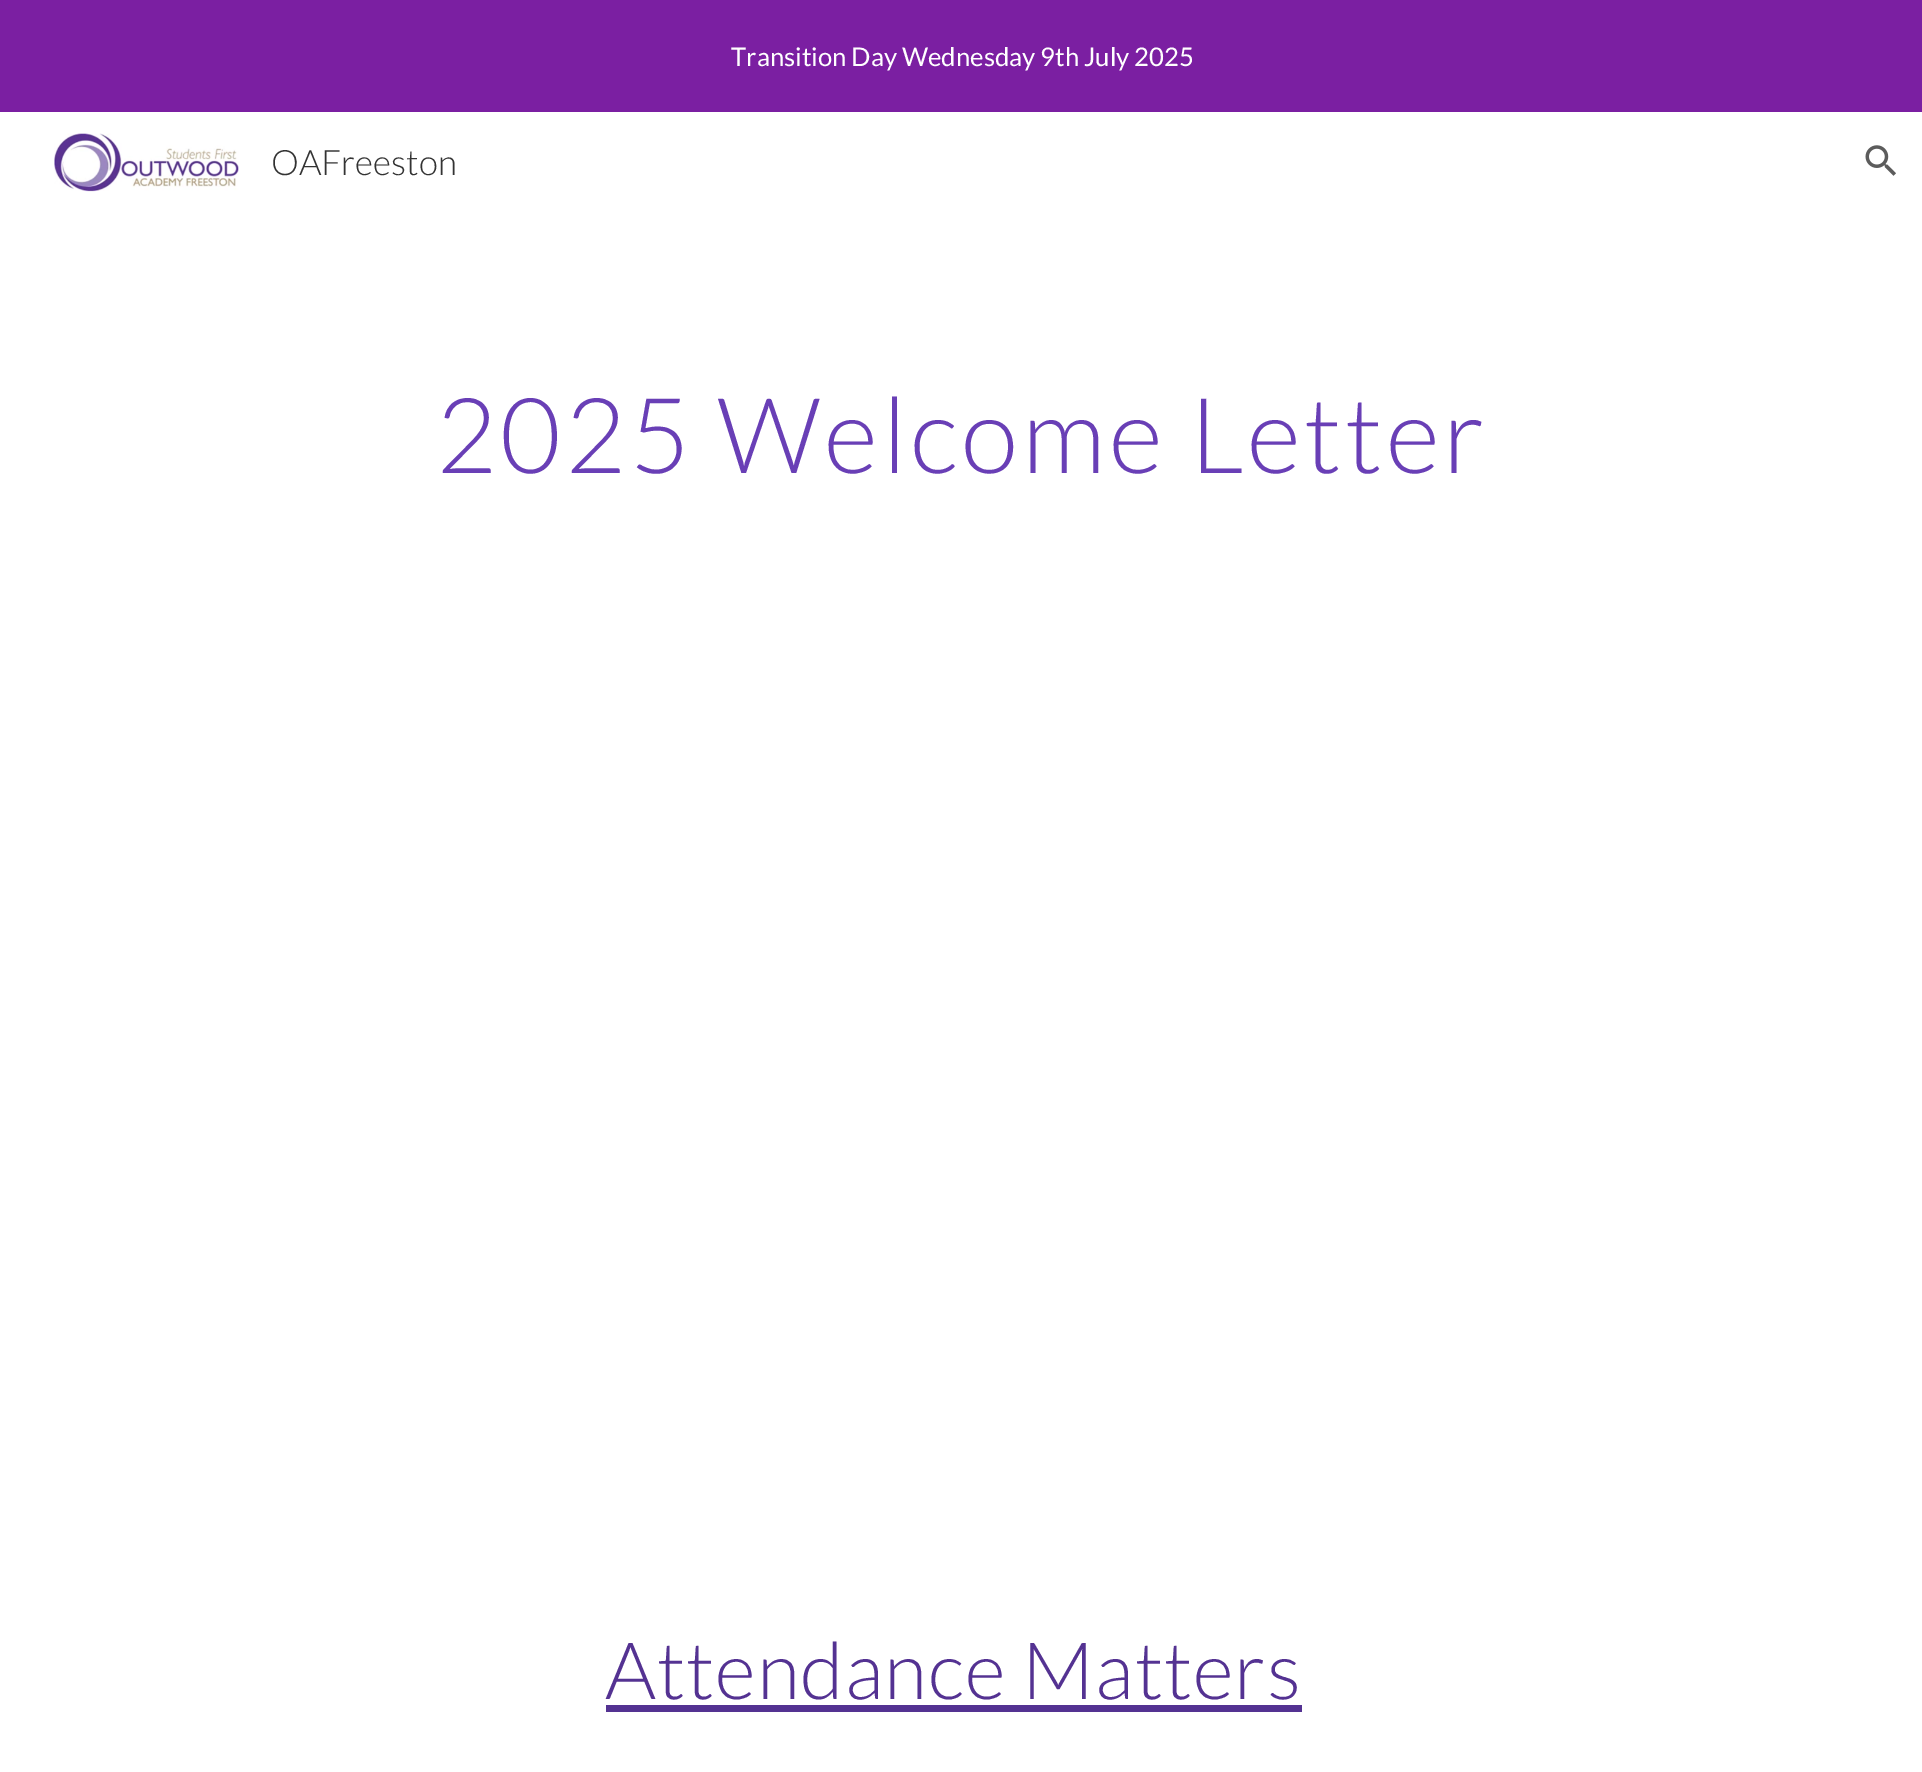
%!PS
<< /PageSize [1922 1772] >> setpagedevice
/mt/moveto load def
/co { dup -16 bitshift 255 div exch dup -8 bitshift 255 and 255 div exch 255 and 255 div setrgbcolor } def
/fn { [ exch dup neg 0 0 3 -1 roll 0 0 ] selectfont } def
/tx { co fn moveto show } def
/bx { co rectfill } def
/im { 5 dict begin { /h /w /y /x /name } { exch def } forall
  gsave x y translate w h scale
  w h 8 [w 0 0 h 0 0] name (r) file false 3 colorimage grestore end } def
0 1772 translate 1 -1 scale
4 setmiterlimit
0 0 1922 1772 16#FFFFFF bx
0 0 1922 112 16#7B1FA2 bx
(media/1.raw) 54 133 185 59 im
(media/2.raw) 1865 145 31 31 im
606 1705 696 7 16#543292 bx
(Transition Day Wednesday 9th July 2025) 731 66 /Lato-Regular 25.7 16#FFFFFF tx
(OAFreeston) 271 175 /Lato-Light 35 16#333333 tx
/Lato-Light 105 fn
16#693FB6 co
436 473 mt 3.5 0 (2025 Welcome Letter) ashow
/Lato-Light 79.25 fn
16#543292 co
605 1699 mt .9 0 (Attendance Matters) ashow
showpage
